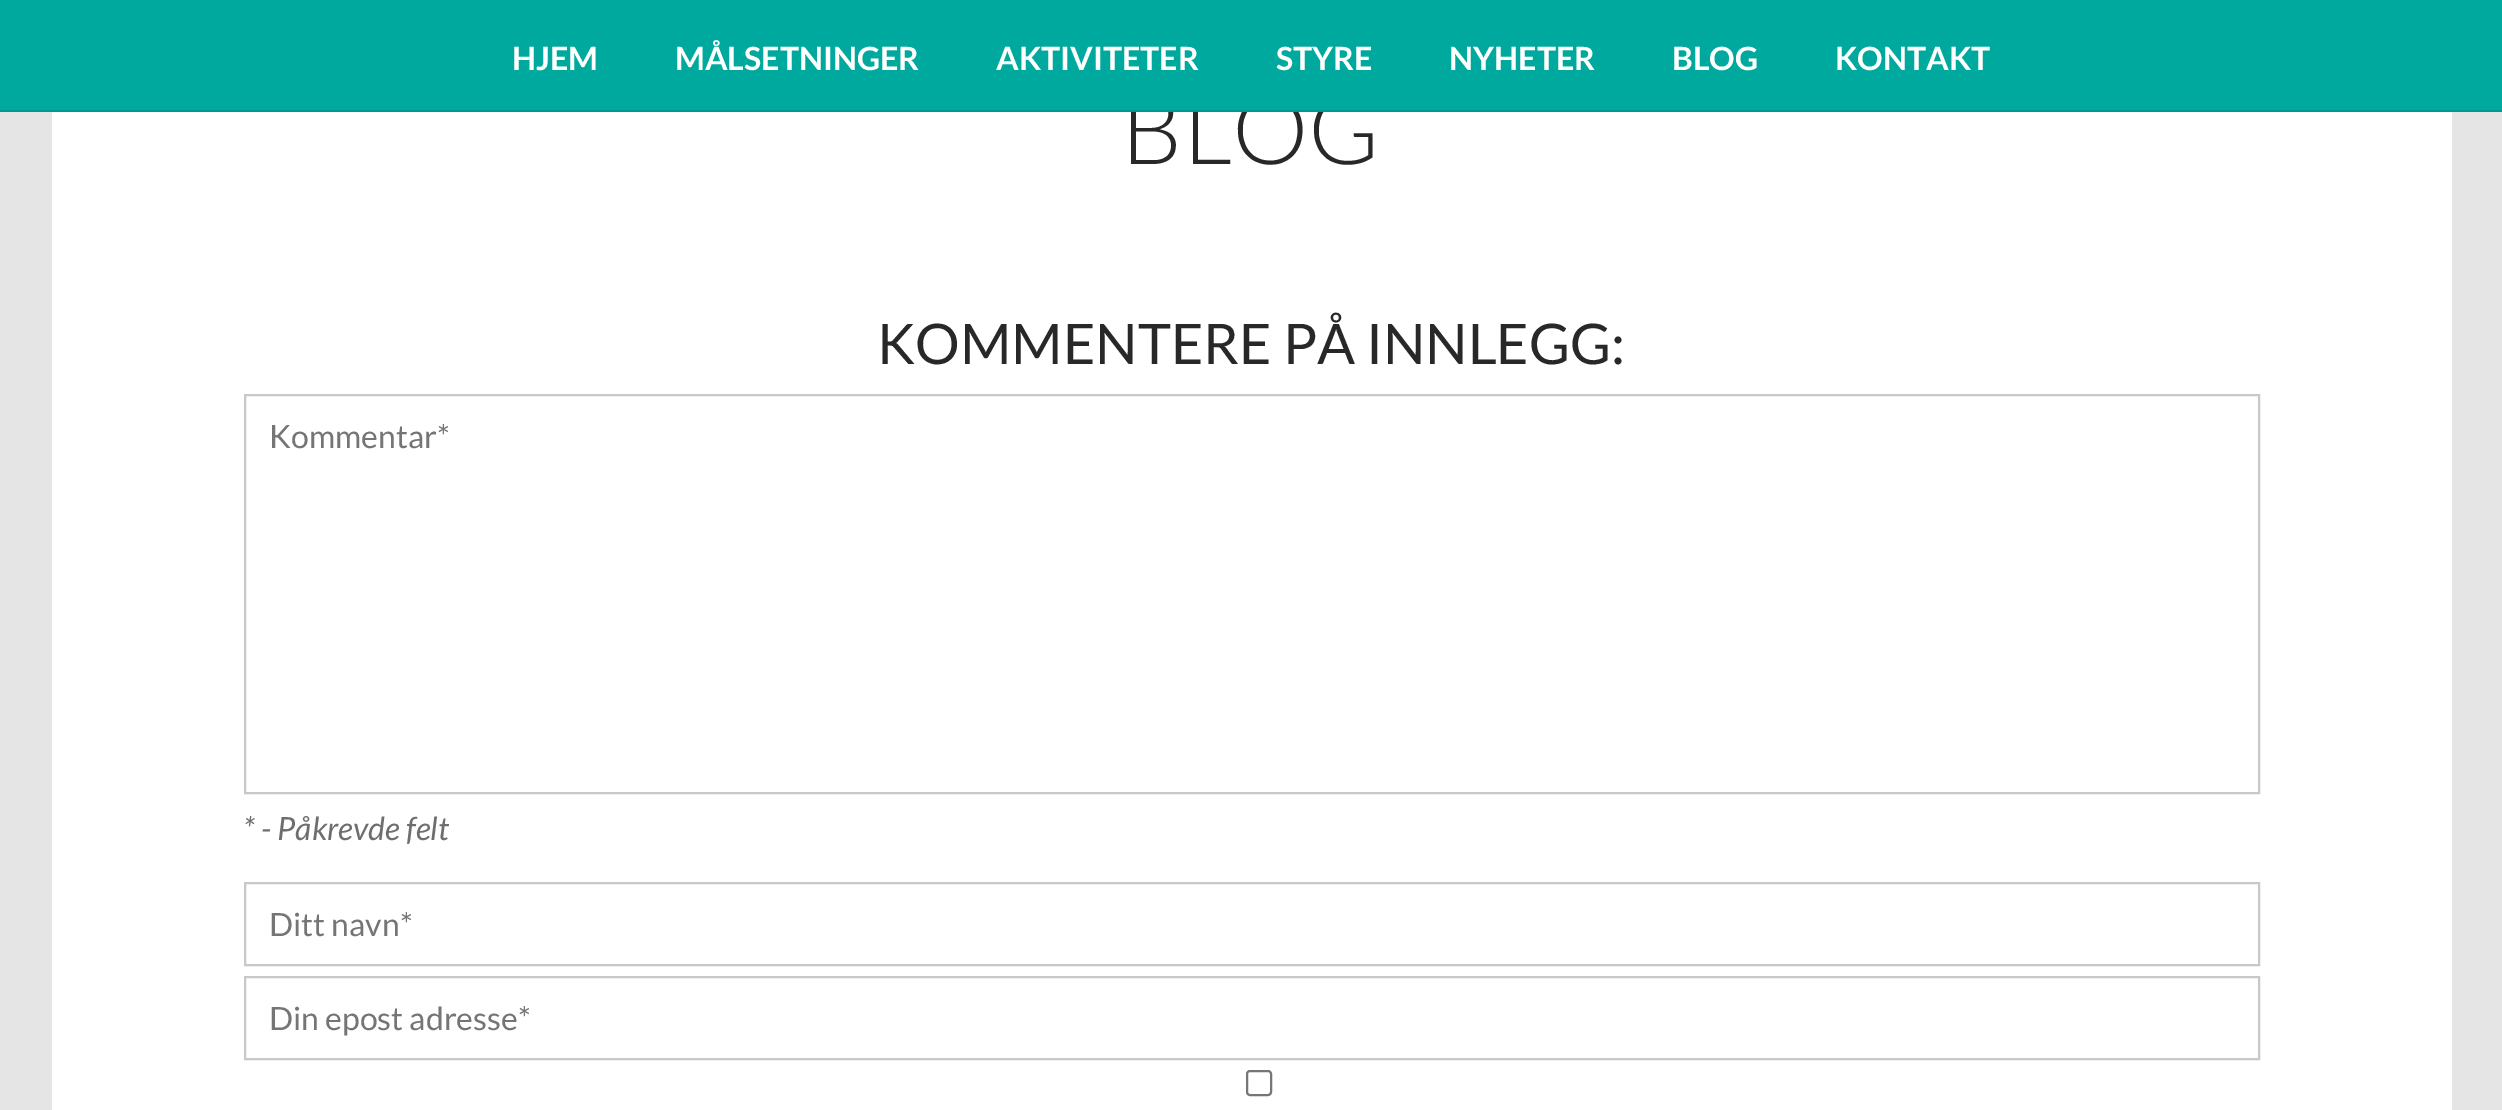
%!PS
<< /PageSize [2502 1110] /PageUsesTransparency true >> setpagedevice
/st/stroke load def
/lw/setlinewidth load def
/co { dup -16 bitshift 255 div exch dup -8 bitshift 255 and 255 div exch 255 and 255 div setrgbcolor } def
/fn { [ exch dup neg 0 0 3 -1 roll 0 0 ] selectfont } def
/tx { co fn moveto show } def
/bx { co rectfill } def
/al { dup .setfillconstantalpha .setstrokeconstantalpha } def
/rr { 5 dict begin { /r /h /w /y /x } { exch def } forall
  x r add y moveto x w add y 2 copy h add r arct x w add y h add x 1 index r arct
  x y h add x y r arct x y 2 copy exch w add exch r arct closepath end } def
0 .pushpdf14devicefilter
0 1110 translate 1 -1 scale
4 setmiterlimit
0 0 2502 1110 16#E5E5E5 bx
52 112 2400 998 16#FFFFFF bx
0.1 al
1131 112 193 2 16#FFFFFF bx
1 al
16#C8C8C8 co
2 lw
245 395 2014 398 rectstroke
245 883 2014 82 rectstroke
245 977 2014 82 rectstroke
16#767676 co
1247 1071 24 24 3 rr st
(BLOG) 1121 164 /Lato-Light 96 16#282828 tx
0 0 2502 110 16#00A99D bx
(KONTAKT) 1835 70 /Lato-Bold 32 16#FFFFFF tx
(BLOG) 1672 70 /Lato-Bold 32 16#FFFFFF tx
(NYHETER) 1449 70 /Lato-Bold 32 16#FFFFFF tx
(STYRE) 1276 70 /Lato-Bold 32 16#FFFFFF tx
(AKTIVITETER) 996 70 /Lato-Bold 32 16#FFFFFF tx
(MÅLSETNINGER) 675 70 /Lato-Bold 32 16#FFFFFF tx
(HJEM) 512 70 /Lato-Bold 32 16#FFFFFF tx
0 110 2502 2 16#00988D bx
(KOMMENTERE PÅ INNLEGG:) 877 364 /Lato-Regular 56 16#282828 tx
(Kommentar*) 269 448 /Lato-Regular 32 16#757575 tx
(* - Påkrevde felt) 243 840 /Lato-Italic 32 16#6E6E6E tx
(Ditt navn*) 269 936 /Lato-Regular 32 16#757575 tx
(Din epost adresse*) 269 1030 /Lato-Regular 32 16#757575 tx
.poppdf14devicefilter showpage
